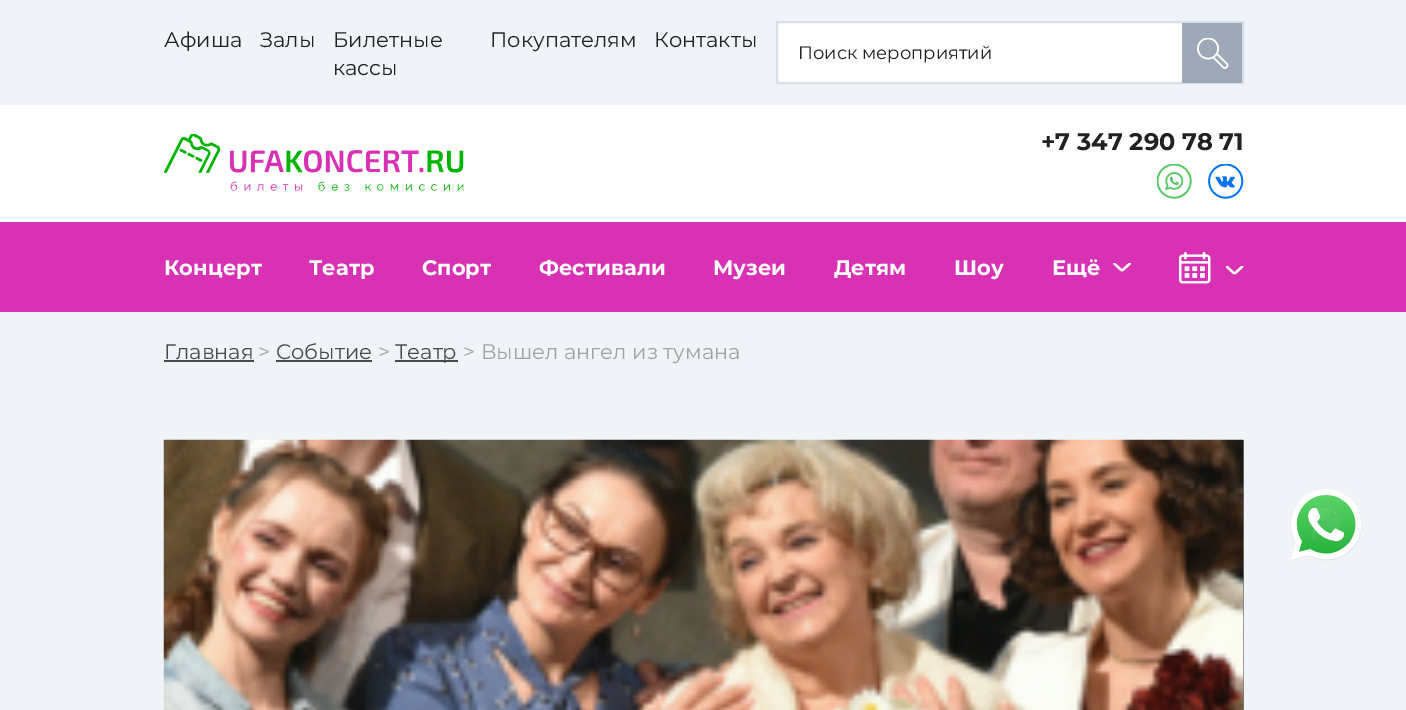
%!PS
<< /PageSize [1406 710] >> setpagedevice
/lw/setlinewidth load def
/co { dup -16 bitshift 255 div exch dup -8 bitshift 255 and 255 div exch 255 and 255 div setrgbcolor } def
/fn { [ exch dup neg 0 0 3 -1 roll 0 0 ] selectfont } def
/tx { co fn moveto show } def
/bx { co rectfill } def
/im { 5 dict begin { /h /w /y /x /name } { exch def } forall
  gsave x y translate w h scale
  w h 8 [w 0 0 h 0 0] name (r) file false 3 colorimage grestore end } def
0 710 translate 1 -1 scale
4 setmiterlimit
0 0 1406 710 16#F0F4F8 bx
0 105 1406 117 16#FFFFFF bx
778 23 404 59 16#FFFFFF bx
16#D8DFE6 co
2 lw
777 22 466 61 rectstroke
1182 23 60 60 16#9EA8B7 bx
(media/1.raw) 1197 38 32 31 im
(media/2.raw) 164 134 300 57 im
(media/3.raw) 1157 164 35 35 im
(media/4.raw) 1208 164 36 35 im
0 222 1406 90 16#D831B3 bx
(media/5.raw) 1113 263 18 9 im
(media/6.raw) 1179 252 32 32 im
(media/7.raw) 1226 266 18 9 im
164 360 90 2 16#494949 bx
276 360 96 2 16#494949 bx
395 360 63 2 16#494949 bx
1243 440 1 270 16#787A7C bx
(media/8.raw) 163 439 1081 271 im
(media/9.raw) 1290 489 72 72 im
(Афиша) 164 47 /Montserrat-Regular 21 16#212121 tx
(Залы) 260 47 /Montserrat-Regular 21 16#212121 tx
(Билетные) 333 47 /Montserrat-Regular 21 16#212121 tx
(кассы) 333 75 /Montserrat-Regular 21 16#212121 tx
(Покупателям) 490 47 /Montserrat-Regular 21 16#212121 tx
(Контакты) 654 47 /Montserrat-Regular 21 16#212121 tx
(Поиск мероприятий) 798 59 /Montserrat-Regular 18 16#212121 tx
(+7 347 290 78 71) 1041 150 /Montserrat-Bold 24 16#212121 tx
(Концерт) 164 275 /Montserrat-Bold 21 16#FFFFFF tx
(Театр) 309 275 /Montserrat-Bold 21 16#FFFFFF tx
(Спорт) 422 275 /Montserrat-Bold 21 16#FFFFFF tx
(Фестивали) 539 275 /Montserrat-Bold 21 16#FFFFFF tx
(Музеи) 713 275 /Montserrat-Bold 21 16#FFFFFF tx
(Детям) 834 275 /Montserrat-Bold 21 16#FFFFFF tx
(Шоу) 954 275 /Montserrat-Bold 21 16#FFFFFF tx
(Ещё) 1052 275 /Montserrat-Bold 21 16#FFFFFF tx
(Главная) 164 359 /Montserrat-Regular 21 16#494949 tx
(>) 258 359 /Montserrat-Regular 21 16#A1A1A1 tx
(Событие) 276 359 /Montserrat-Regular 21 16#494949 tx
(>) 378 359 /Montserrat-Regular 21 16#A1A1A1 tx
(Театр) 395 359 /Montserrat-Regular 21 16#494949 tx
(> Вышел ангел из тумана) 463 359 /Montserrat-Regular 21 16#A1A1A1 tx
showpage
